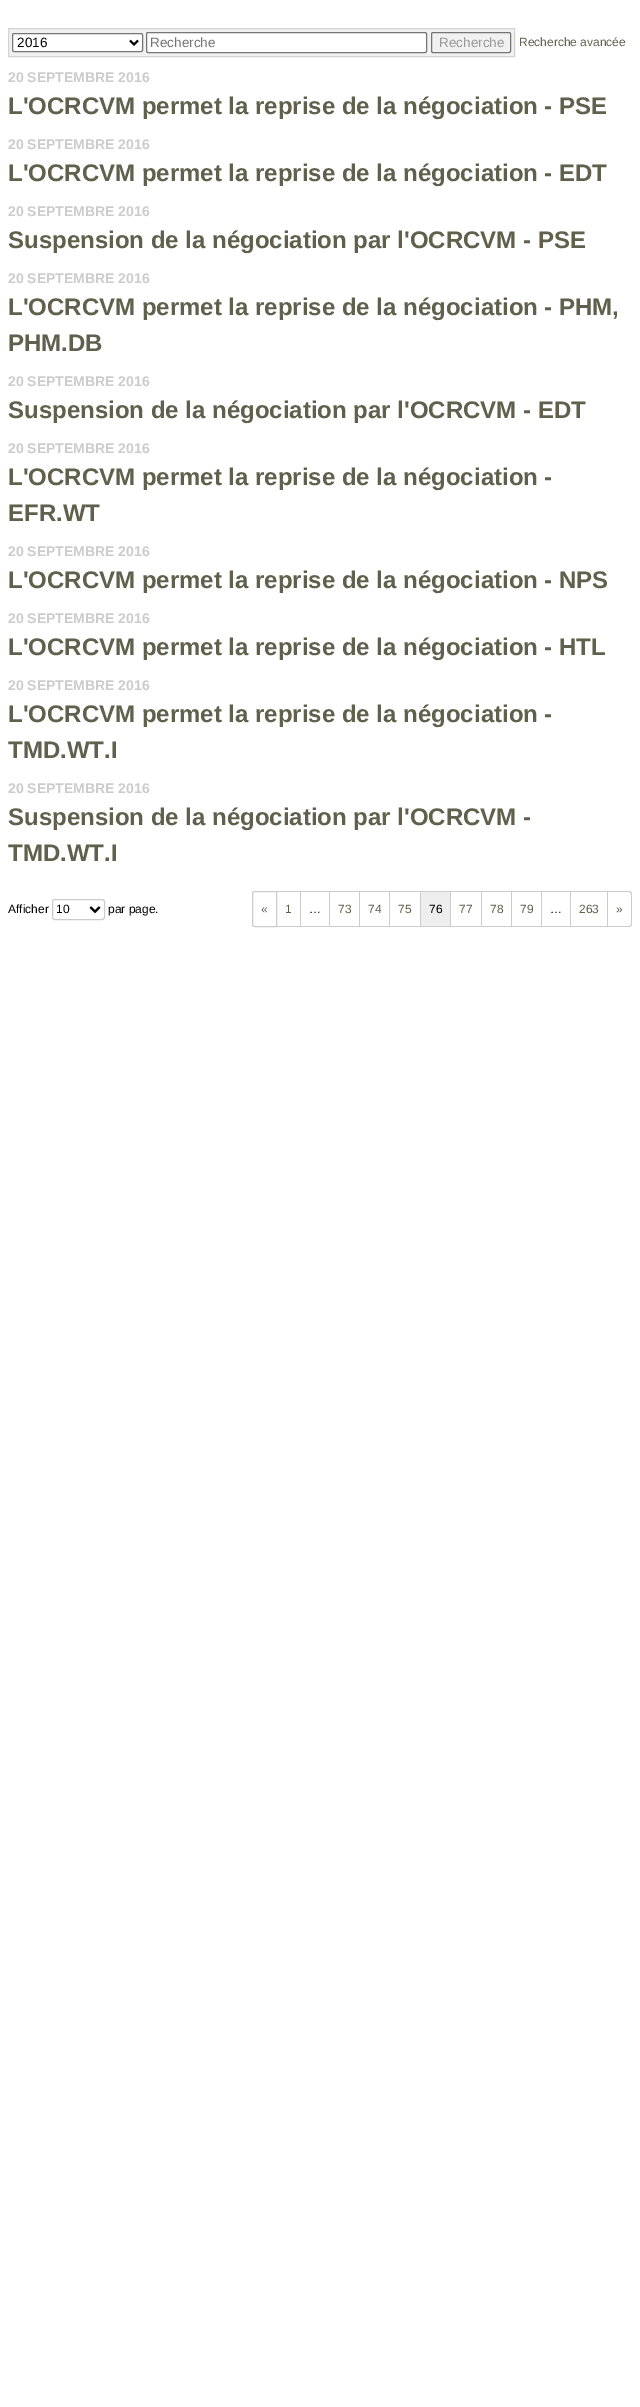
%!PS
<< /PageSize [640 2407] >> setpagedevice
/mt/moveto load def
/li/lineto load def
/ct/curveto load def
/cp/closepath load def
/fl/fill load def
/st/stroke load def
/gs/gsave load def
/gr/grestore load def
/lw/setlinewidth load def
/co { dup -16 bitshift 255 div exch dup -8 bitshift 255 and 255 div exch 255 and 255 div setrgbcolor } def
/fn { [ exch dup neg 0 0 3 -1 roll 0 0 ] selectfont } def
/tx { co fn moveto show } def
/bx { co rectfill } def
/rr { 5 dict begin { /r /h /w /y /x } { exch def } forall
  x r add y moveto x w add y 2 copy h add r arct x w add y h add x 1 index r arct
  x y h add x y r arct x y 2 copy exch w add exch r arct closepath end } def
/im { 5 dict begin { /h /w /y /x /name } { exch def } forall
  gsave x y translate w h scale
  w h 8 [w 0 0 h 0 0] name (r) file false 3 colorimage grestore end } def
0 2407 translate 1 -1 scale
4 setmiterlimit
0 0 640 2407 16#FFFFFF bx
16#F1F1F1 co
8.5 28.5 mt 514.5 28.5 li 514.5 56.5 li 8.5 56.5 li cp gs fl gr
16#D3D3D3 co
st
16#FFFFFF co
12.5 33.5 130 18 1.5 rr gs fl gr
16#767676 co
st
16#000000 co
2 lw
130 40.5 mt 134 44.5 li 138 40.5 li st
16#FFFFFF co
146.5 32.5 280 20 1.5 rr gs fl gr
16#767676 co
1 lw
st
431.5 32.5 79 20 1.5 rr st
16#CCCCCC co
52.5 899.5 52 20 2.5 rr st
(media/1.raw) 89 906 12 8 im
255 891.5 mt 276.5 891.5 li 276.5 926.5 li 255 926.5 li 253.5 926.5 252.5 925.5 252.5 924 ct 252.5 894 li 252.5 892.5 253.5 891.5 255 891.5 ct cp st
277 891 331 1 16#CCCCCC bx
300 891 1 36 16#CCCCCC bx
277 926 24 1 16#CCCCCC bx
329 891 1 36 16#CCCCCC bx
301 926 29 1 16#CCCCCC bx
359 891 1 36 16#CCCCCC bx
330 926 30 1 16#CCCCCC bx
389 891 1 36 16#CCCCCC bx
360 926 30 1 16#CCCCCC bx
420 891 1 36 16#CCCCCC bx
390 926 31 1 16#CCCCCC bx
421 892 29 34 16#EEEEEE bx
450 891 1 36 16#CCCCCC bx
421 926 30 1 16#CCCCCC bx
481 891 1 36 16#CCCCCC bx
451 926 31 1 16#CCCCCC bx
511 891 1 36 16#CCCCCC bx
482 926 30 1 16#CCCCCC bx
541 891 1 36 16#CCCCCC bx
512 926 30 1 16#CCCCCC bx
570 891 1 36 16#CCCCCC bx
542 926 29 1 16#CCCCCC bx
607 891 1 36 16#CCCCCC bx
571 926 37 1 16#CCCCCC bx
608 891 mt 629 891 li 630.5 891 632 892.5 632 894 ct 632 924 li 632 925.5 630.5 927 629 927 ct 608 927 li cp 608 892 mt 629 892 li 630 892 631 893 631 894 ct 631 924 li 631 925 630 926 629 926 ct 608 926 li cp eofill
(2016) 17 47 /LiberationSans-Regular 13.5 16#000000 tx
(Recherche) 150 47 /LiberationSans-Regular 13.5 16#757575 tx
(Recherche) 439 47 /LiberationSans-Regular 13.5 16#999999 tx
(Recherche avancée) 519 46 /LiberationSans-Regular 12 16#60604D tx
(20 SEPTEMBRE 2016) 8 82 /LiberationSans-Bold 14 16#CCCCCC tx
(L'OCRCVM permet la reprise de la négociation - PSE) 8 114 /LiberationSans-Bold 24 16#60604D tx
(20 SEPTEMBRE 2016) 8 149 /LiberationSans-Bold 14 16#CCCCCC tx
(L'OCRCVM permet la reprise de la négociation - EDT) 8 181 /LiberationSans-Bold 24 16#60604D tx
(20 SEPTEMBRE 2016) 8 216 /LiberationSans-Bold 14 16#CCCCCC tx
(Suspension de la négociation par l'OCRCVM - PSE) 8 248 /LiberationSans-Bold 24 16#60604D tx
(20 SEPTEMBRE 2016) 8 283 /LiberationSans-Bold 14 16#CCCCCC tx
(L'OCRCVM permet la reprise de la négociation - PHM,) 8 315 /LiberationSans-Bold 24 16#60604D tx
(PHM.DB) 8 351 /LiberationSans-Bold 24 16#60604D tx
(20 SEPTEMBRE 2016) 8 386 /LiberationSans-Bold 14 16#CCCCCC tx
(Suspension de la négociation par l'OCRCVM - EDT) 8 418 /LiberationSans-Bold 24 16#60604D tx
(20 SEPTEMBRE 2016) 8 453 /LiberationSans-Bold 14 16#CCCCCC tx
(L'OCRCVM permet la reprise de la négociation -) 8 485 /LiberationSans-Bold 24 16#60604D tx
(EFR.WT) 8 521 /LiberationSans-Bold 24 16#60604D tx
(20 SEPTEMBRE 2016) 8 556 /LiberationSans-Bold 14 16#CCCCCC tx
(L'OCRCVM permet la reprise de la négociation - NPS) 8 588 /LiberationSans-Bold 24 16#60604D tx
(20 SEPTEMBRE 2016) 8 623 /LiberationSans-Bold 14 16#CCCCCC tx
(L'OCRCVM permet la reprise de la négociation - HTL) 8 655 /LiberationSans-Bold 24 16#60604D tx
(20 SEPTEMBRE 2016) 8 690 /LiberationSans-Bold 14 16#CCCCCC tx
(L'OCRCVM permet la reprise de la négociation -) 8 722 /LiberationSans-Bold 24 16#60604D tx
(TMD.WT.I) 8 758 /LiberationSans-Bold 24 16#60604D tx
(20 SEPTEMBRE 2016) 8 793 /LiberationSans-Bold 14 16#CCCCCC tx
(Suspension de la négociation par l'OCRCVM -) 8 825 /LiberationSans-Bold 24 16#60604D tx
(TMD.WT.I) 8 861 /LiberationSans-Bold 24 16#60604D tx
(Afficher) 8 913 /LiberationSans-Regular 12 16#000000 tx
(10) 56 913 /LiberationSans-Regular 12 16#000000 tx
(par page.) 108 913 /LiberationSans-Regular 12 16#000000 tx
(«) 261 913 /LiberationSans-Regular 12 16#60604D tx
(1) 285 913 /LiberationSans-Regular 12 16#60604D tx
(…) 309 913 /LiberationSans-Regular 12 16#000000 tx
(73) 338 913 /LiberationSans-Regular 12 16#60604D tx
(74) 368 913 /LiberationSans-Regular 12 16#60604D tx
(75) 398 913 /LiberationSans-Regular 12 16#60604D tx
(76) 429 913 /LiberationSans-Regular 12 16#000000 tx
(77) 459 913 /LiberationSans-Regular 12 16#60604D tx
(78) 490 913 /LiberationSans-Regular 12 16#60604D tx
(79) 520 913 /LiberationSans-Regular 12 16#60604D tx
(…) 550 913 /LiberationSans-Regular 12 16#000000 tx
(263) 579 913 /LiberationSans-Regular 12 16#60604D tx
(») 616 913 /LiberationSans-Regular 12 16#60604D tx
showpage
